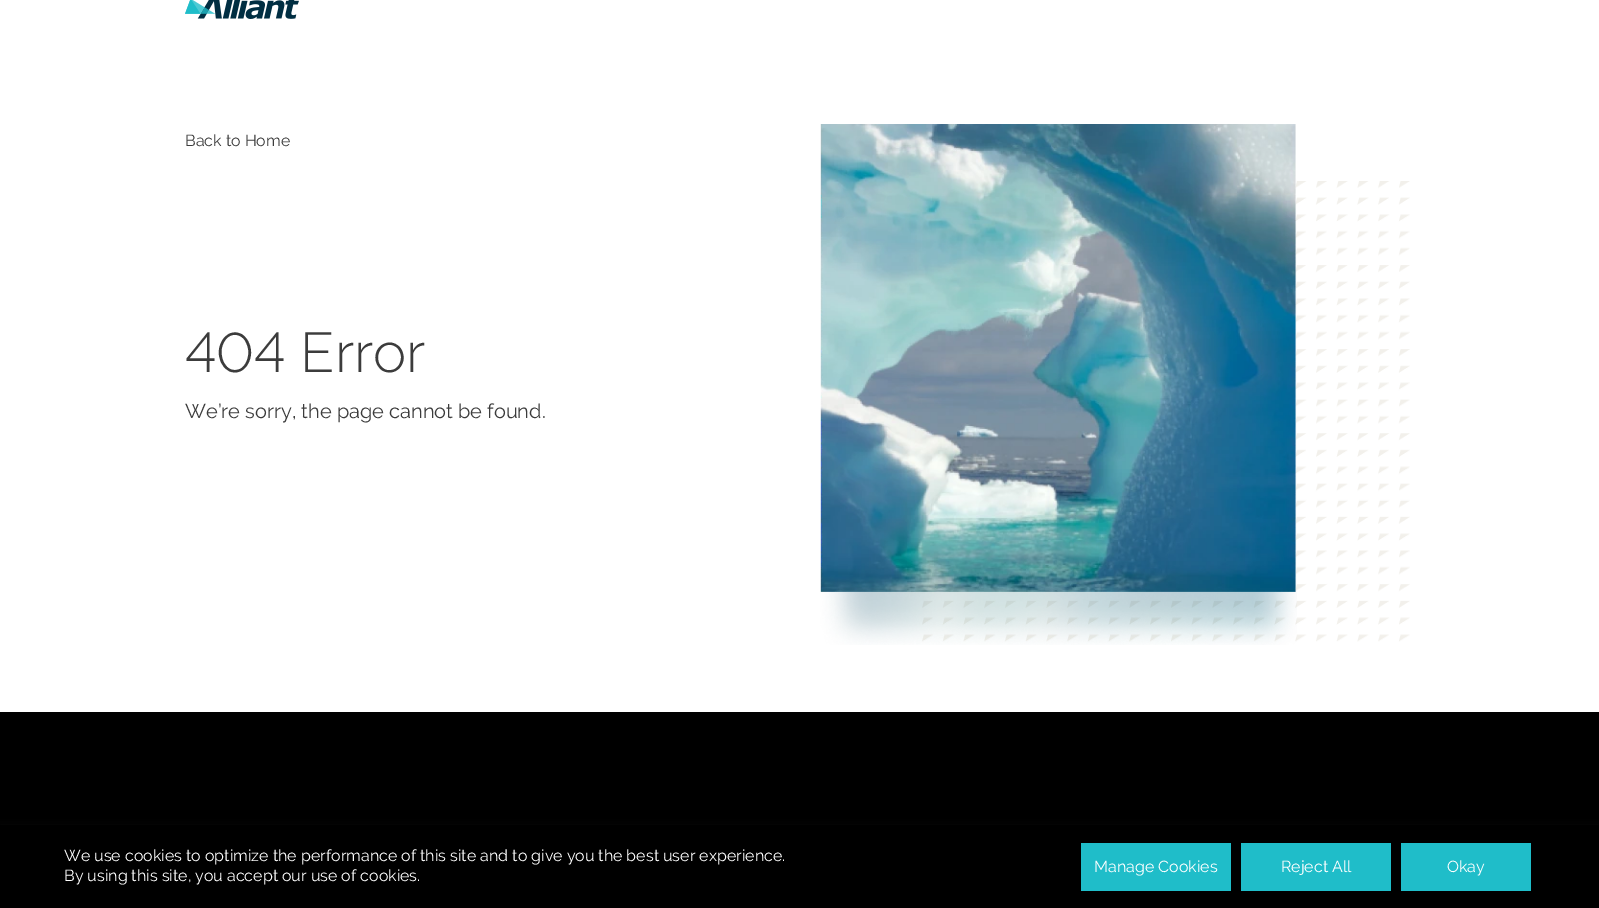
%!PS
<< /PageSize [1599 908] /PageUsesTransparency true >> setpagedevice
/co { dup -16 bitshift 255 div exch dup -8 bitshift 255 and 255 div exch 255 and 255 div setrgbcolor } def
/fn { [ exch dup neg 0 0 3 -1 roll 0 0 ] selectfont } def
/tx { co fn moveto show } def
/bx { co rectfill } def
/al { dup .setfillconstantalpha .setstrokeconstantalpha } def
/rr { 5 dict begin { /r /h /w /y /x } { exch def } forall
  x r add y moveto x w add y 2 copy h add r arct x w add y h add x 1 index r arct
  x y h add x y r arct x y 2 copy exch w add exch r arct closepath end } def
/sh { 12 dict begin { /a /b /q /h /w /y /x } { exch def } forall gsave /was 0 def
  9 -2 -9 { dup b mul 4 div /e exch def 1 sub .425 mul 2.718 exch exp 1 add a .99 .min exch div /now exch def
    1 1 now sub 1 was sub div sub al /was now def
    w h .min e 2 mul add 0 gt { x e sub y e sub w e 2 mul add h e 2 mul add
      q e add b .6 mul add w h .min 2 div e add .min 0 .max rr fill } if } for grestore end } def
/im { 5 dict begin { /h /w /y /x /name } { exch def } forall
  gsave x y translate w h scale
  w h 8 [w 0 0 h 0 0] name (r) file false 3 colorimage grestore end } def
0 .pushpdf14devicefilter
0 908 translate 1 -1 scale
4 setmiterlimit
0 0 1599 908 16#FFFFFF bx
(media/1.raw) 185 0 114 19 im
(media/3.raw) 922 181 488 461 im
(media/2.raw) 820 124 477 521 im
0 712 1599 113 16#000000 bx
16#080808 co
0 825 1599 83 0 5 1 sh
0 825 1599 83 16#000000 bx
1081 843 150 48 16#1FBDC9 bx
1241 843 150 48 16#1FBDC9 bx
1401 843 130 48 16#1FBDC9 bx
(Back to Home) 185 146 /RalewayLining-Regular 16 16#3C3C3C tx
(404 Error) 185 372 /RalewayLining-Light 56 16#3C3C3C tx
(We’re sorry, the page cannot be found.) 185 418 /RalewayLining-Regular 20 16#3C3C3C tx
(We use cookies to optimize the performance of this site and to give you the best user experience.) 64 861 /RalewayLining-Regular 16 16#FFFFFF tx
(By using this site, you accept our use of cookies.) 64 881 /RalewayLining-Regular 16 16#FFFFFF tx
(Manage Cookies) 1094 872 /RalewayLining-Regular 16 16#FFFFFF tx
(Reject All) 1281 872 /RalewayLining-Regular 16 16#FFFFFF tx
(Okay) 1447 872 /RalewayLining-Regular 16 16#FFFFFF tx
.poppdf14devicefilter showpage
